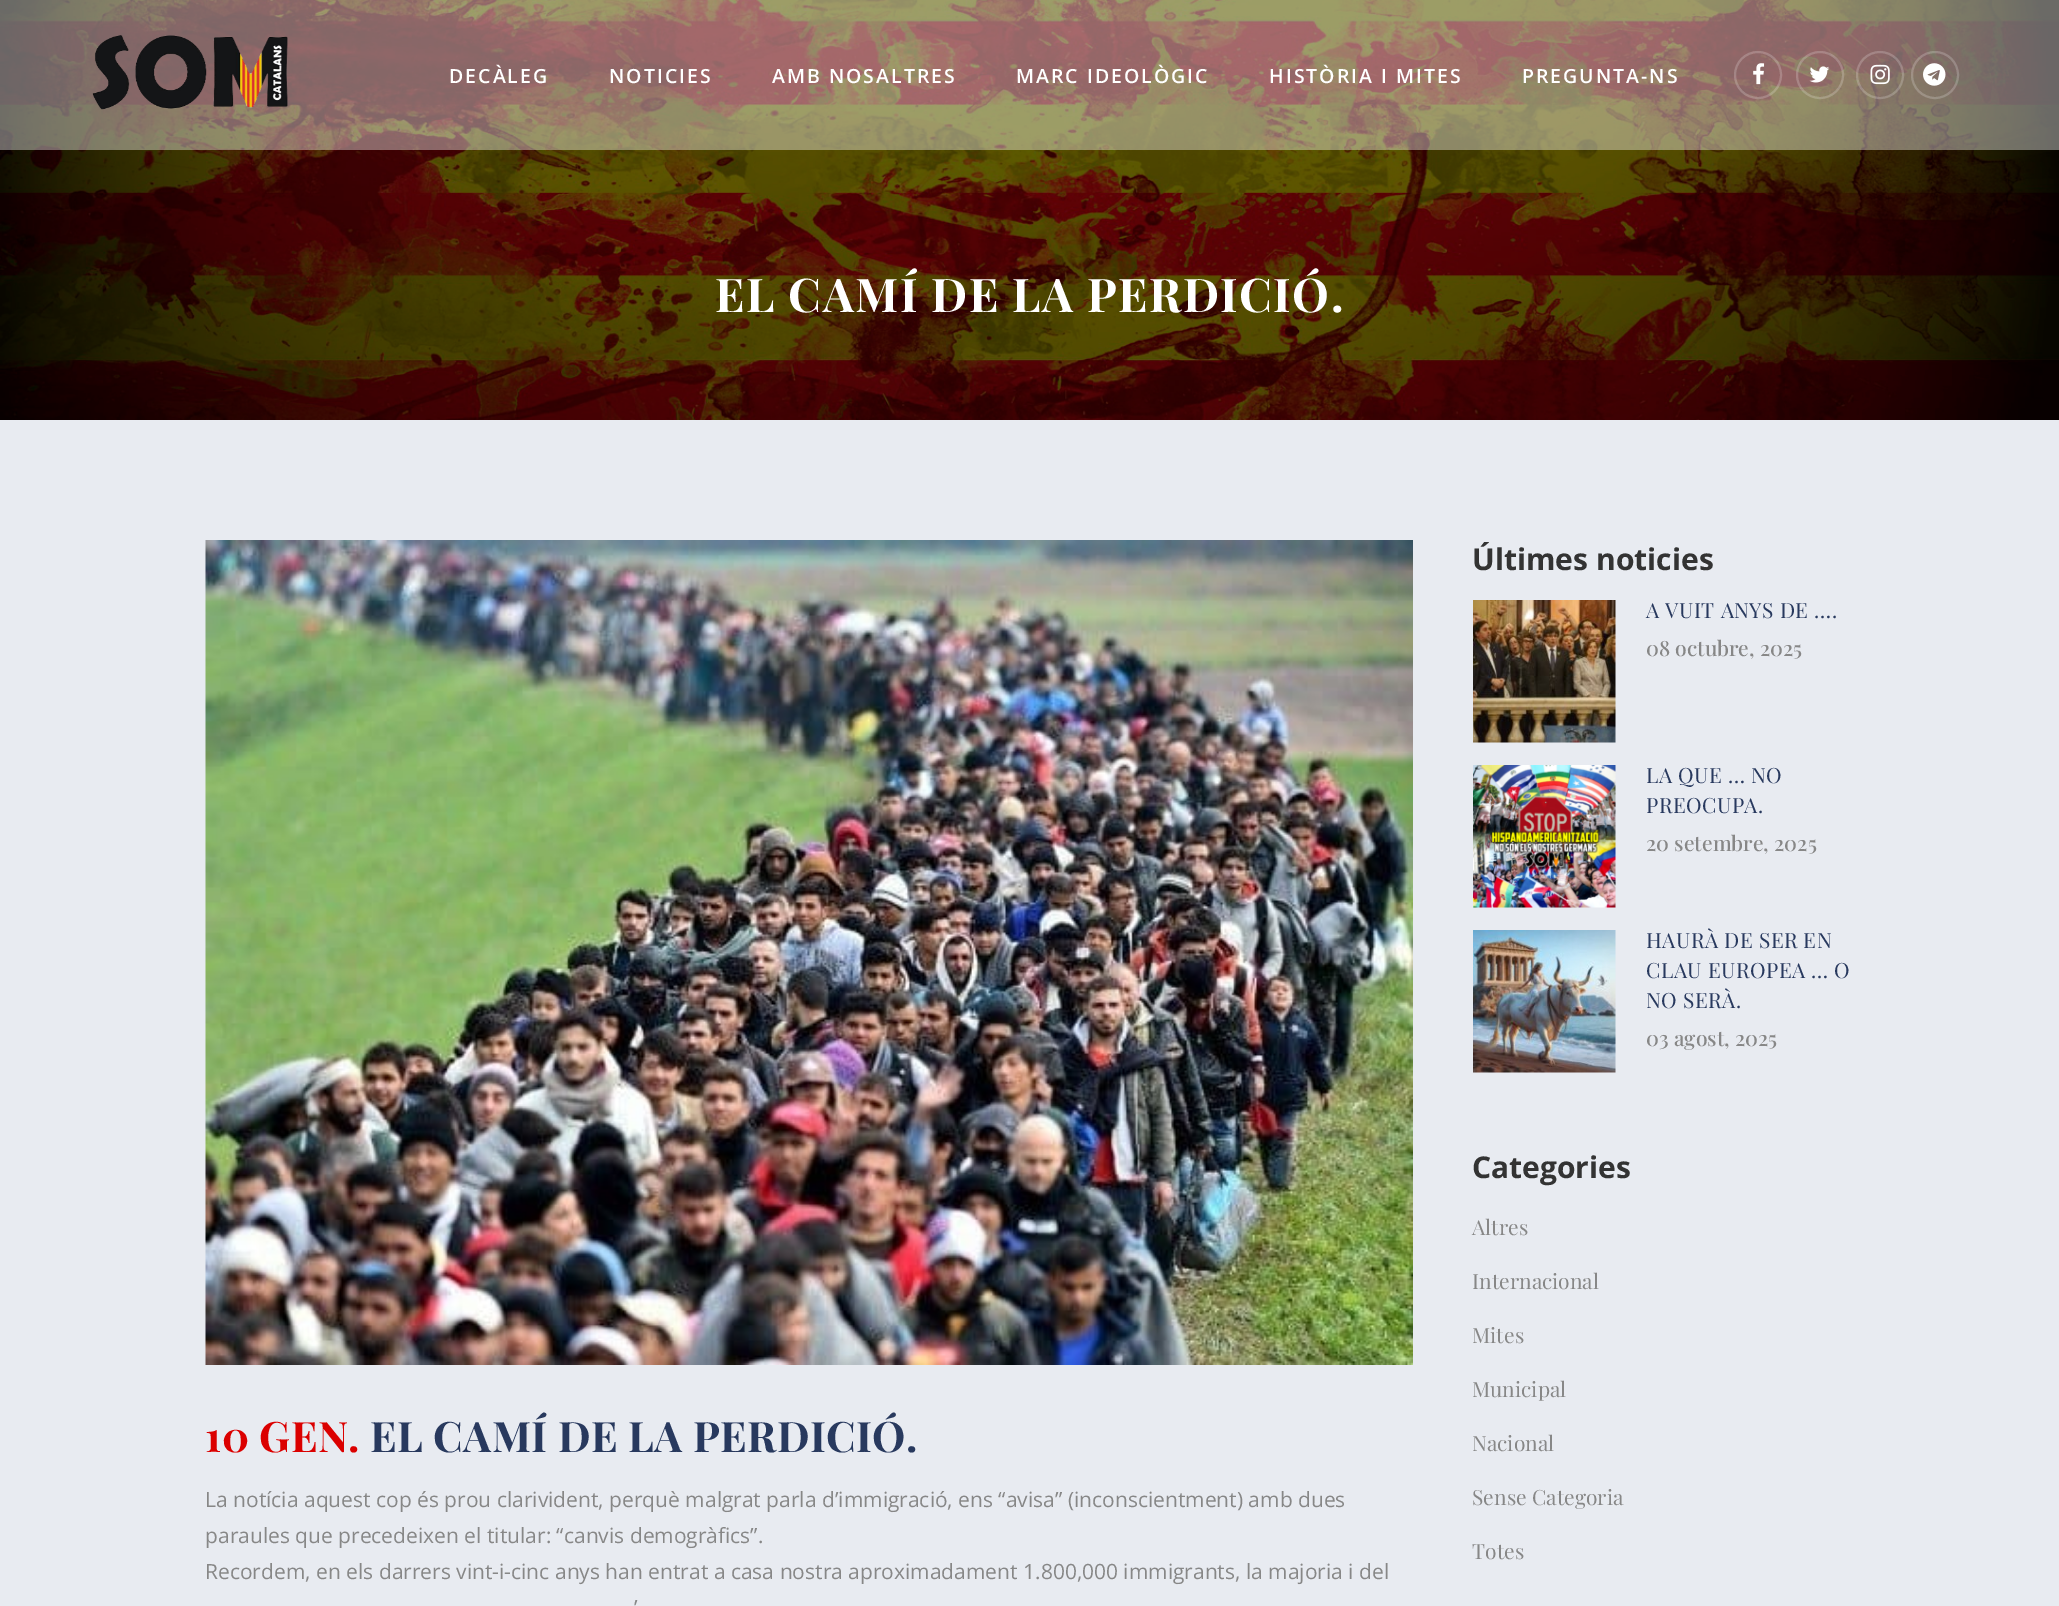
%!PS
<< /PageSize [2059 1606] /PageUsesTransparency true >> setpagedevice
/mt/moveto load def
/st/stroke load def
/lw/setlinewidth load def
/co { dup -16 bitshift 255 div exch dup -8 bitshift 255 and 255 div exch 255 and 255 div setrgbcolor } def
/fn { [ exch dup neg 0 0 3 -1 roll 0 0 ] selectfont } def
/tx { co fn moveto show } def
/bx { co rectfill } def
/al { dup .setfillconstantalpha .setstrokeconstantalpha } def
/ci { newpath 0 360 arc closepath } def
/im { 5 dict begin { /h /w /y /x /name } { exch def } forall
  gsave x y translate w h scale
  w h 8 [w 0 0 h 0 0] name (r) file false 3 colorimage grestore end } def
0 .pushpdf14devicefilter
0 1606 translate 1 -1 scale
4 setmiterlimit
0 0 2059 1606 16#E8EBF1 bx
(media/6.raw) 0 0 2059 420 im
0.4 al
0 0 2059 150 16#FFFFFF bx
1 al
(media/1.raw) 92 35 196 75 im
0.2 al
2 lw
1758 75 23 ci st
1 al
(media/2.raw) 1753 63 12 22 im
0.2 al
1820 75 23 ci st
1 al
(media/3.raw) 1809 66 21 17 im
0.2 al
1880 75 23 ci st
1 al
(media/4.raw) 1870 64 20 21 im
0.2 al
1935 75 23 ci st
1 al
(media/5.raw) 1923 63 23 23 im
(media/7.raw) 205 540 1208 825 im
(media/8.raw) 1473 600 143 143 im
(media/9.raw) 1473 765 143 143 im
(media/10.raw) 1473 930 143 143 im
/OpenSans-SemiBold 19.5 fn
449 83 mt 2 0 (DECÀLEG) ashow
609 83 mt 2 0 (NOTICIES) ashow
772 83 mt 2 0 (AMB NOSALTRES) ashow
1016 83 mt 2 0 (MARC IDEOLÒGIC) ashow
1269 83 mt 2 0 (HISTÒRIA I MITES) ashow
1522 83 mt 2 0 (PREGUNTA-NS) ashow
/PlayfairDisplay-Bold 46.5 fn
715 312 mt 1.5 0 (EL CAMÍ DE LA PERDICIÓ.) ashow
/PlayfairDisplay-Bold 42 fn
16#DB0000 co
205 1452 mt .45 0 (10 GEN.) ashow
16#28395E co
370 1452 mt .45 0 (EL CAMÍ DE LA PERDICIÓ.) ashow
(La notícia aquest cop és prou clarivident, perquè malgrat parla d’immigració, ens “avisa” \(inconscientment\) amb dues) 205 1507 /OpenSans-Regular 21 16#878787 tx
(paraules que precedeixen el titular: “canvis demogràfics”.) 205 1543 /OpenSans-Regular 21 16#878787 tx
(Recordem, en els darrers vint-i-cinc anys han entrat a casa nostra aproximadament 1.800,000 immigrants, la majoria i del) 205 1579 /OpenSans-Regular 21 16#878787 tx
(’) 634 1615 /OpenSans-Regular 21 16#878787 tx
(Últimes noticies) 1472 570 /OpenSans-Bold 30 16#333333 tx
/PlayfairDisplay-Regular 21 fn
16#28395E co
1646 618 mt .45 0 (A VUIT ANYS DE ….) ashow
(08 octubre, 2025) 1646 656 /PlayfairDisplay-Medium 21 16#878787 tx
/PlayfairDisplay-Regular 21 fn
16#28395E co
1646 783 mt .45 0 (LA QUE … NO) ashow
1646 813 mt .45 0 (PREOCUPA.) ashow
(20 setembre, 2025) 1646 851 /PlayfairDisplay-Medium 21 16#878787 tx
/PlayfairDisplay-Regular 21 fn
16#28395E co
1646 948 mt .45 0 (HAURÀ DE SER EN) ashow
1646 978 mt .45 0 (CLAU EUROPEA … O) ashow
1646 1008 mt .45 0 (NO SERÀ.) ashow
(03 agost, 2025) 1646 1046 /PlayfairDisplay-Medium 21 16#878787 tx
(Categories) 1472 1178 /OpenSans-Bold 30 16#333333 tx
(Altres) 1472 1235 /PlayfairDisplay-Regular 21 16#878787 tx
(Internacional) 1472 1289 /PlayfairDisplay-Regular 21 16#878787 tx
(Mites) 1472 1343 /PlayfairDisplay-Regular 21 16#878787 tx
(Municipal) 1472 1397 /PlayfairDisplay-Regular 21 16#878787 tx
(Nacional) 1472 1451 /PlayfairDisplay-Regular 21 16#878787 tx
(Sense Categoria) 1472 1505 /PlayfairDisplay-Regular 21 16#878787 tx
(Totes) 1472 1559 /PlayfairDisplay-Regular 21 16#878787 tx
.poppdf14devicefilter showpage
